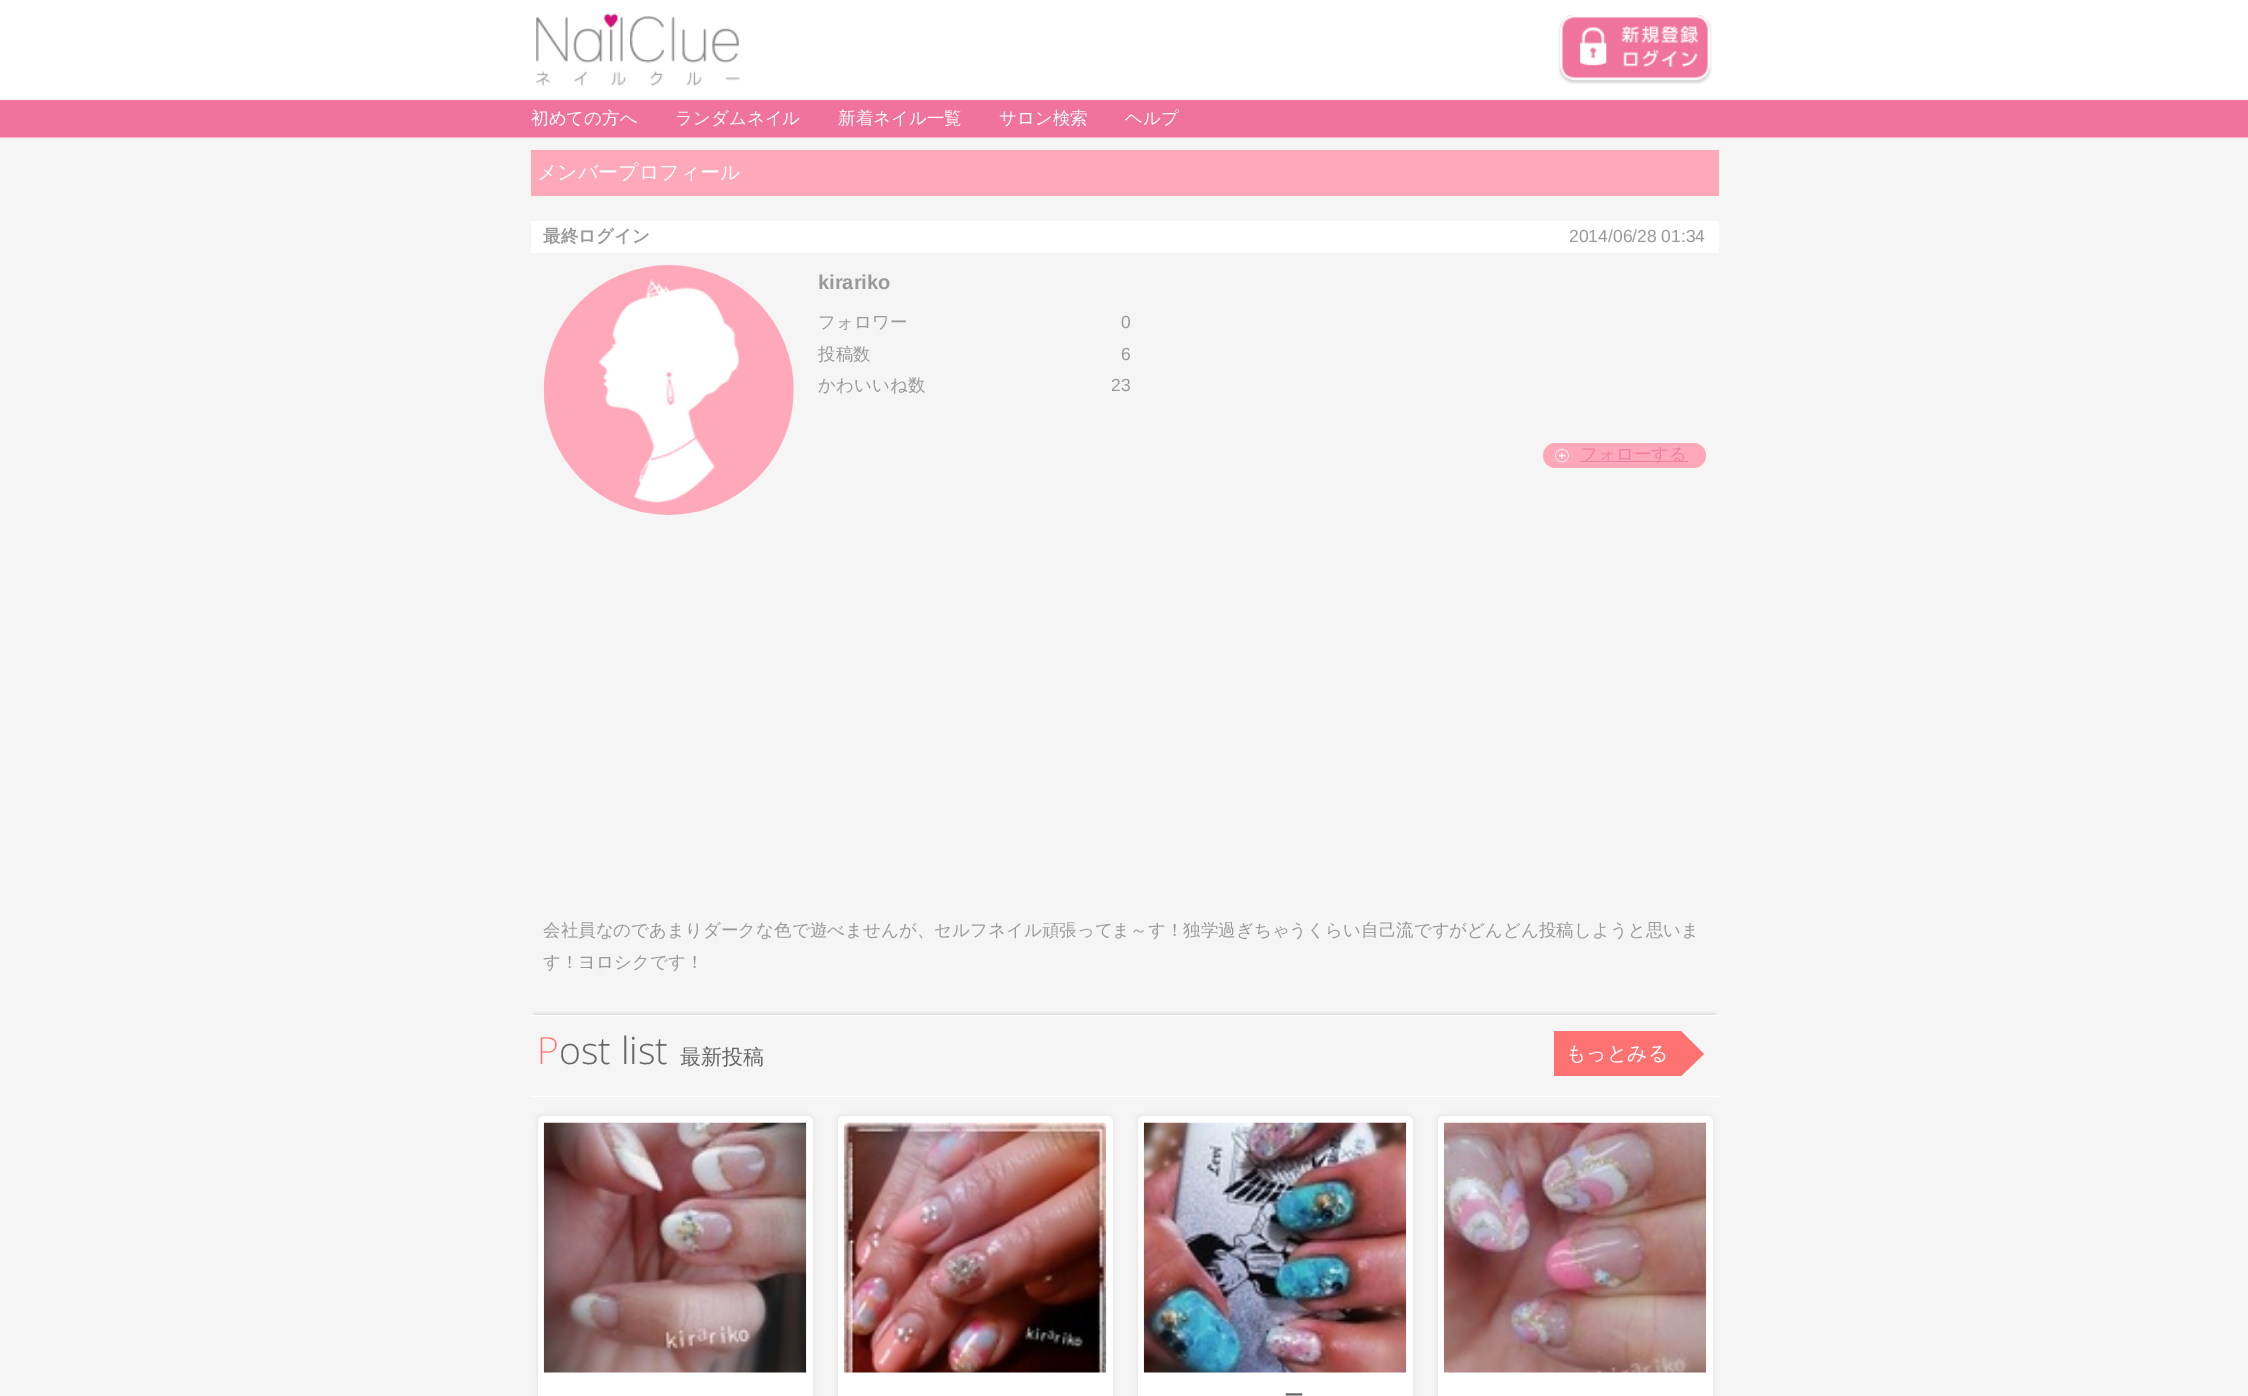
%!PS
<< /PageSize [2248 1396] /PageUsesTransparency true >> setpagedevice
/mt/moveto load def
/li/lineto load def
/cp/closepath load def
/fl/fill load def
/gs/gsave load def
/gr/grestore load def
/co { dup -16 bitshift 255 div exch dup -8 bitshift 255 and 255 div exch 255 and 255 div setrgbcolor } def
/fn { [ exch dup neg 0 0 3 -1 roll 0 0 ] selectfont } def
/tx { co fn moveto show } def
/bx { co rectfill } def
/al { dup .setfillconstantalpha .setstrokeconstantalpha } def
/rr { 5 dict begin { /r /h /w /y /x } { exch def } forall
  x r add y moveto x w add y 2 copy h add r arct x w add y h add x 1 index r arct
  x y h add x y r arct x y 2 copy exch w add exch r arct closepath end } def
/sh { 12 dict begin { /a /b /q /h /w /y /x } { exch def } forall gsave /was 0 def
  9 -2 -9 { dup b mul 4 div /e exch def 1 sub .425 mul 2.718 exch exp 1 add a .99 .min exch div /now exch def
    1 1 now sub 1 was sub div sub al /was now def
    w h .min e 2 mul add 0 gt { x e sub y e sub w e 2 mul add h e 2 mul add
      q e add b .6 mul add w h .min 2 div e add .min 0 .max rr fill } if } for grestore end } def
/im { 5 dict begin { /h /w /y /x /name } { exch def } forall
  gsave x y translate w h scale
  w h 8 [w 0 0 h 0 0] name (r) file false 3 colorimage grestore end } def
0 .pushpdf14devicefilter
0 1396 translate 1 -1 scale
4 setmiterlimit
0 0 2248 1396 16#F5F5F5 bx
(media/1.raw) 0 0 2248 138 im
(media/2.raw) 536 13 204 74 im
(media/3.raw) 1558 15 154 69 im
531 150 1188 46 16#FEA8BA bx
531 221 1188 32 16#FFFFFF bx
(media/4.raw) 543 265 251 250 im
16#FEA8BA co
1543 443 163 25 12.5 rr fl
(media/5.raw) 1555 448 14 15 im
1580 461 108 1 16#EF80A0 bx
gs
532 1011 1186 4 rectclip
16#DDDDDD co
534 1013 1182 77 0 1 1 sh
gr
531 1015 1188 1 16#FFFFFF bx
531 1096 1188 1 16#FFFFFF bx
1554 1031 127 45 16#FF7272 bx
1681 1076 mt 1681 1031 li 1704 1054 li cp fl
16#DDDDDD co
538 1116 275 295 6 3 1 sh
16#FFFFFF co
538 1116 275 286 6 rr fl
(media/6.raw) 543 1122 264 251 im
16#DDDDDD co
838 1116 275 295 6 3 1 sh
16#FFFFFF co
838 1116 275 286 6 rr fl
(media/7.raw) 843 1122 264 251 im
16#DDDDDD co
1138 1116 275 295 6 3 1 sh
16#FFFFFF co
1138 1116 275 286 6 rr fl
(media/8.raw) 1143 1122 264 251 im
16#DDDDDD co
1438 1116 275 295 6 3 1 sh
16#FFFFFF co
1438 1116 275 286 6 rr fl
(media/9.raw) 1443 1122 264 251 im
(初めての方へ) 531 124 /WenQuanYiZenHei-Medium 17.5 16#FFFFFF tx
(ランダムネイル) 675 124 /WenQuanYiZenHei-Medium 17.5 16#FFFFFF tx
(新着ネイル一覧) 838 124 /WenQuanYiZenHei-Medium 17.5 16#FFFFFF tx
(サロン検索) 999 124 /WenQuanYiZenHei-Medium 17.5 16#FFFFFF tx
(ヘルプ) 1125 124 /WenQuanYiZenHei-Medium 17.5 16#FFFFFF tx
(メンバープロフィール) 537 179 /WenQuanYiZenHei-Medium 20 16#FFFFFF tx
(最終ログイン) 543 242 /WenQuanYiZenHei-Bold 17.5 16#999999 tx
(2014/06/28 01:34) 1569 242 /LiberationSans-Regular 17.5 16#999999 tx
(kirariko) 818 289 /LiberationSans-Bold 20 16#999999 tx
(フォロワー) 818 328 /WenQuanYiZenHei-Medium 17.5 16#999999 tx
(0) 1121 328 /LiberationSans-Regular 17.5 16#999999 tx
(投稿数) 818 360 /WenQuanYiZenHei-Medium 17.5 16#999999 tx
(6) 1121 360 /LiberationSans-Regular 17.5 16#999999 tx
(かわいいね数) 818 391 /WenQuanYiZenHei-Medium 17.5 16#999999 tx
(23) 1111 391 /LiberationSans-Regular 17.5 16#999999 tx
(フォローする) 1580 460 /WenQuanYiZenHei-Medium 17.5 16#EF80A0 tx
(会社員なのであまりダークな色で遊べませんが、セルフネイル頑張ってま～す！独学過ぎちゃうくらい自己流ですがどんどん投稿しようと思いま) 543 936 /WenQuanYiZenHei-Medium 17.5 16#999999 tx
(す！ヨロシクです！) 543 968 /WenQuanYiZenHei-Medium 17.5 16#999999 tx
(P) 537 1064 /NotoSans-ExtraLight 37.5 16#FF7272 tx
(ost list) 559 1064 /OpenSans-Light 37.5 16#666666 tx
(最新投稿) 680 1064 /WenQuanYiZenHei-Medium 21 16#666666 tx
(もっとみる) 1566 1060 /WenQuanYiZenHei-Medium 20 16#FFFFFF tx
(ー) 1284 1402 /WenQuanYiZenHei-Medium 20 16#666666 tx
.poppdf14devicefilter showpage
